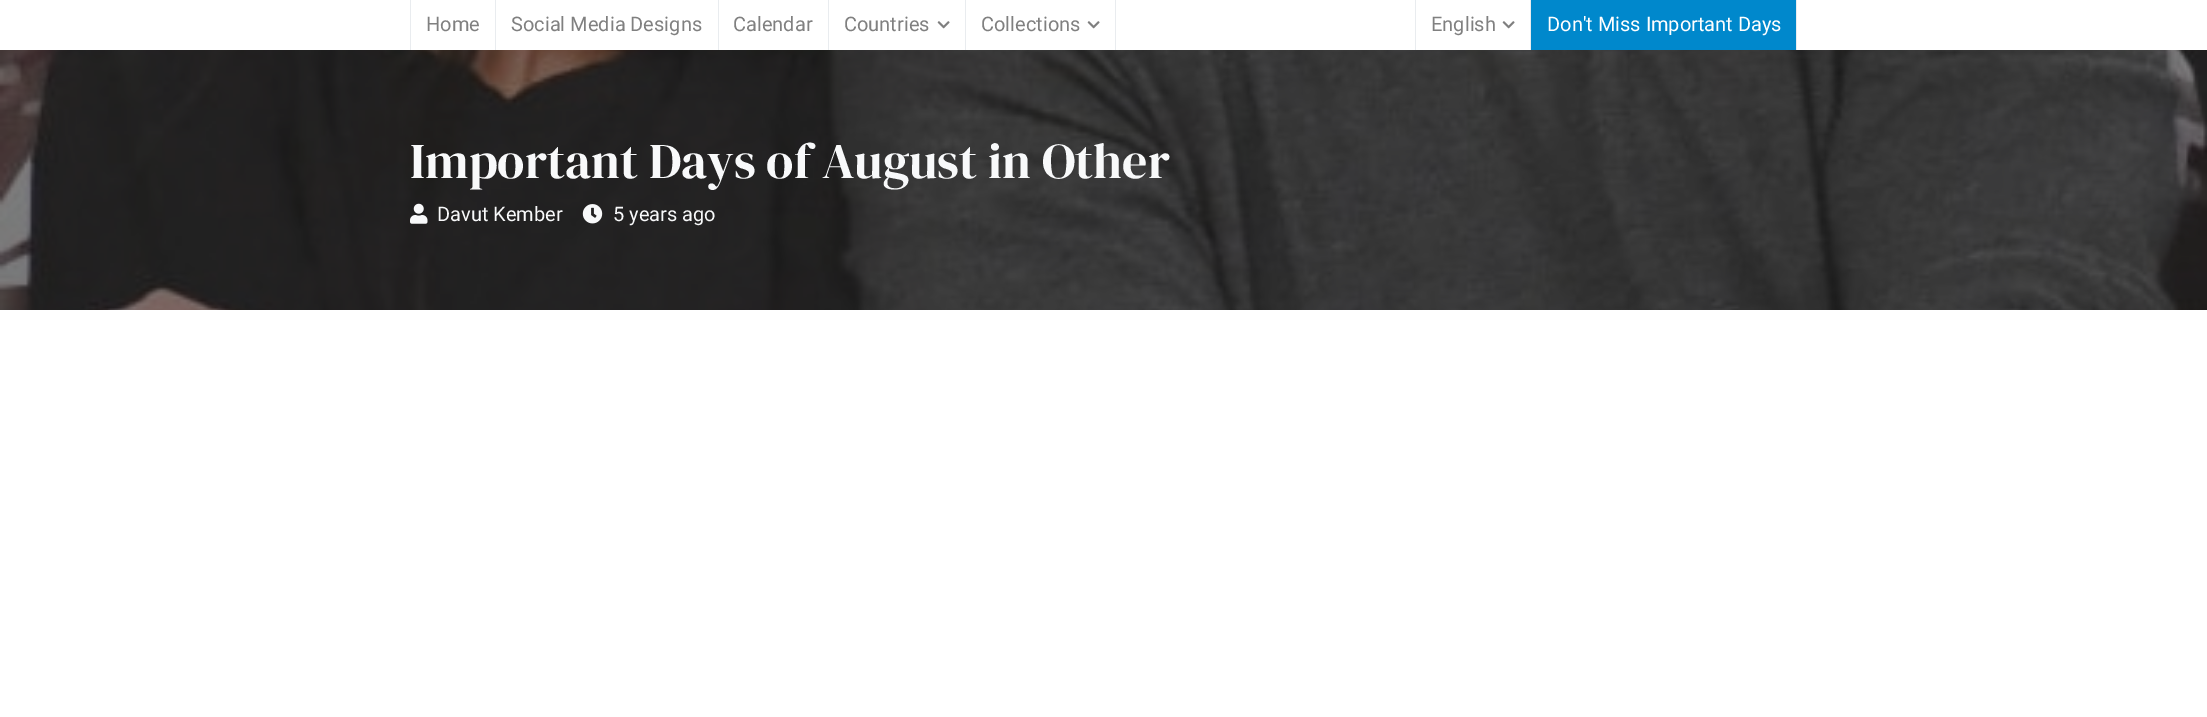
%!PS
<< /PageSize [2207 717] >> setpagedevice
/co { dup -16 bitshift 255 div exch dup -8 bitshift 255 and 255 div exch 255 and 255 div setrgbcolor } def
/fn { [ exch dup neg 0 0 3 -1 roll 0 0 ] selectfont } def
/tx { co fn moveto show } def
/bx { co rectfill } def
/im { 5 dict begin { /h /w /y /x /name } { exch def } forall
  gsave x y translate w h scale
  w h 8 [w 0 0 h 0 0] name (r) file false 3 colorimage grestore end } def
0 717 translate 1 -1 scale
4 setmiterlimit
0 0 2207 717 16#FFFFFF bx
495 0 1 50 16#E9ECEF bx
410 0 1 50 16#E9ECEF bx
718 0 1 50 16#E9ECEF bx
828 0 1 50 16#E9ECEF bx
965 0 1 50 16#E9ECEF bx
(media/1.raw) 937 21 13 8 im
1115 0 1 50 16#E9ECEF bx
(media/1.raw) 1087 21 13 8 im
1530 0 1 50 16#E9ECEF bx
1415 0 1 50 16#E9ECEF bx
(media/1.raw) 1502 21 13 8 im
1796 0 1 50 16#E9ECEF bx
1531 0 265 50 16#0088CC bx
(media/2.raw) 0 50 2207 260 im
(media/3.raw) 410 203 18 21 im
(media/4.raw) 582 204 21 20 im
(Home) 426 31 /Roboto-Regular 20 16#808080 tx
(Social Media Designs) 511 31 /Roboto-Regular 20 16#808080 tx
(Calendar) 733 31 /Roboto-Regular 20 16#808080 tx
(Countries) 844 31 /Roboto-Regular 20 16#808080 tx
(Collections) 981 31 /Roboto-Regular 20 16#808080 tx
(English) 1431 31 /Roboto-Regular 20 16#808080 tx
(Don't Miss Important Days) 1547 31 /Roboto-Regular 20 16#FFFFFF tx
(Important Days of August in Other) 410 178 /DMSerifDisplay-Regular 50 16#F8F9FA tx
(Davut Kember) 437 221 /Roboto-Regular 20 16#F8F9FA tx
(5 years ago) 613 221 /Roboto-Regular 20 16#F8F9FA tx
showpage
